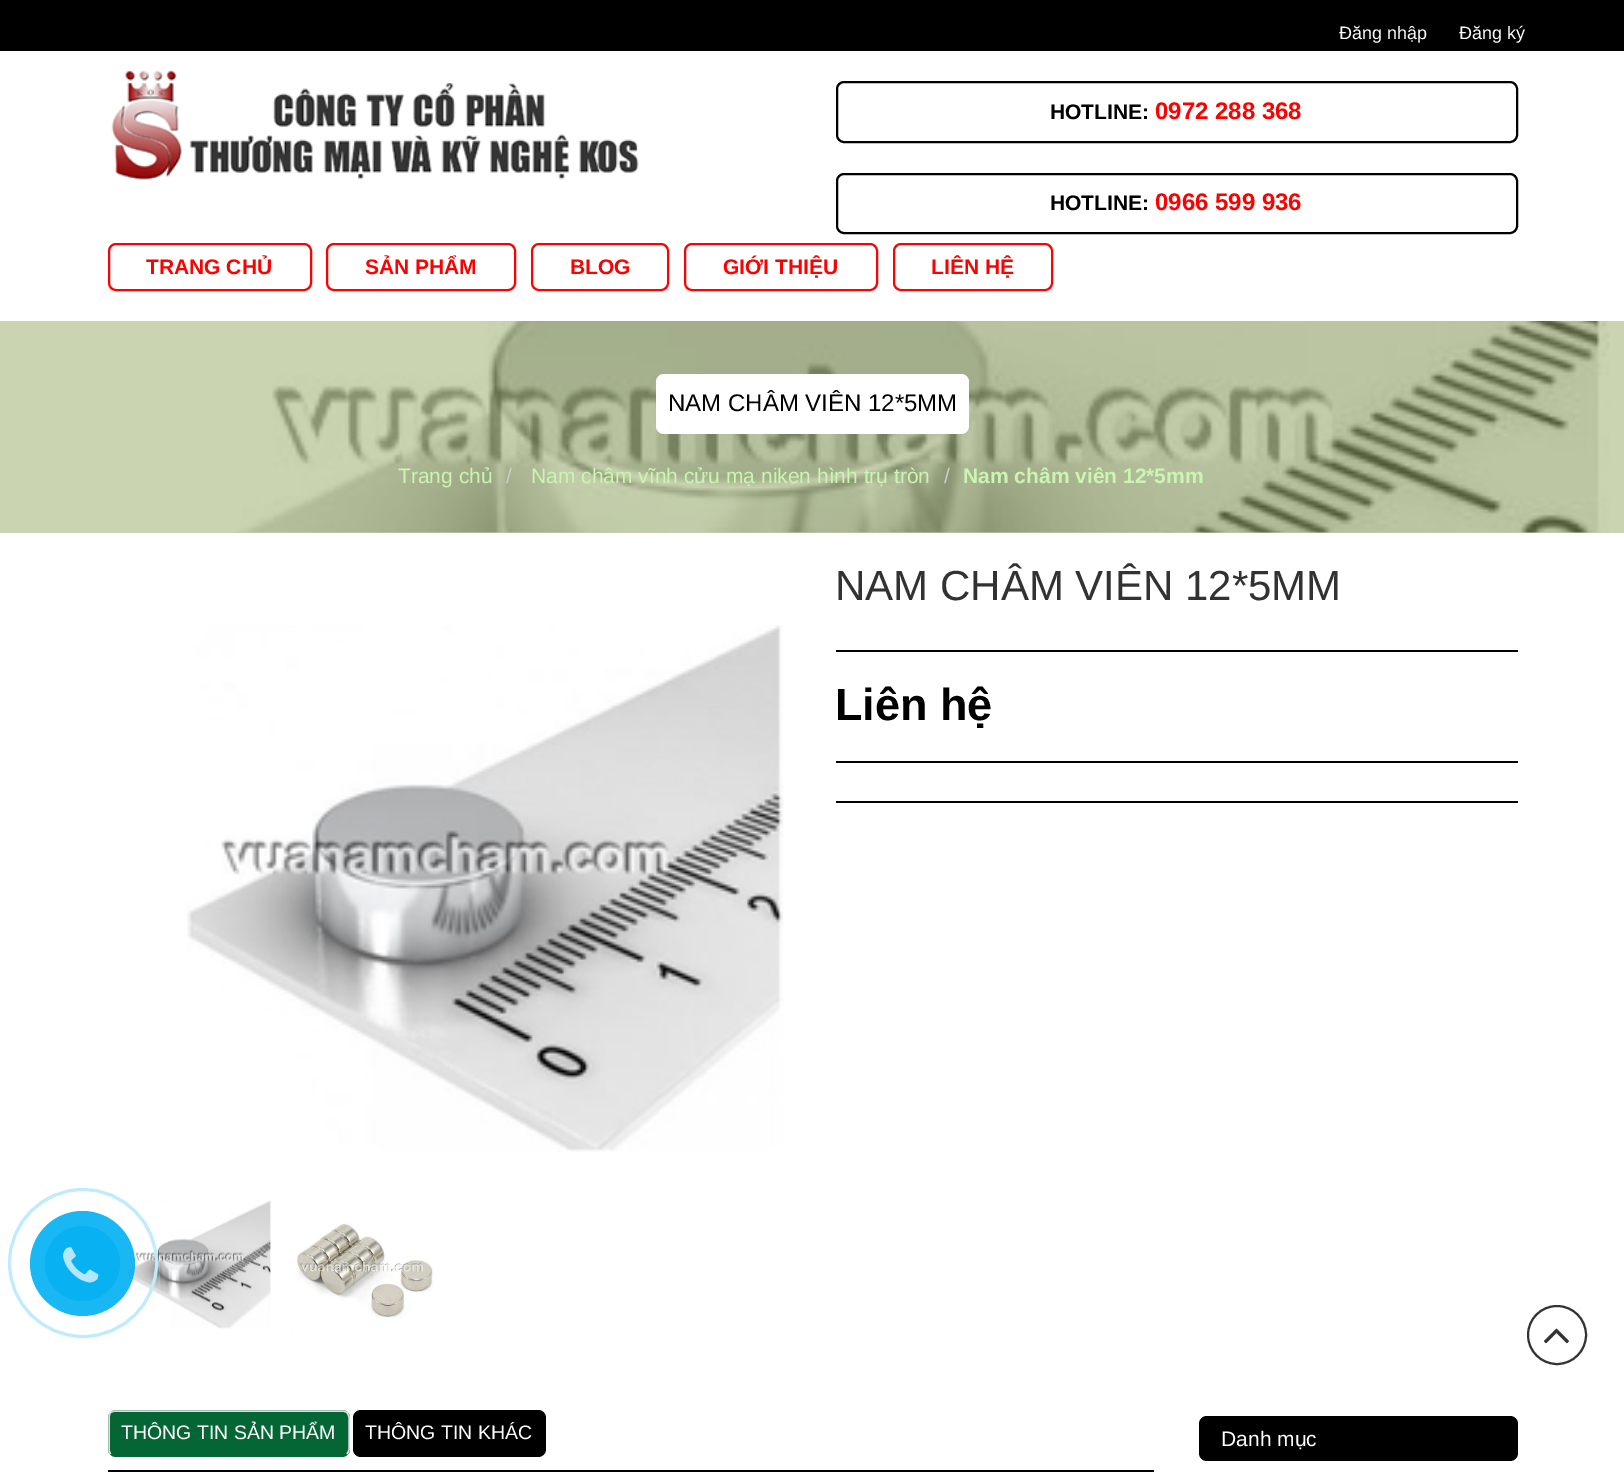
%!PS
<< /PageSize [1624 1484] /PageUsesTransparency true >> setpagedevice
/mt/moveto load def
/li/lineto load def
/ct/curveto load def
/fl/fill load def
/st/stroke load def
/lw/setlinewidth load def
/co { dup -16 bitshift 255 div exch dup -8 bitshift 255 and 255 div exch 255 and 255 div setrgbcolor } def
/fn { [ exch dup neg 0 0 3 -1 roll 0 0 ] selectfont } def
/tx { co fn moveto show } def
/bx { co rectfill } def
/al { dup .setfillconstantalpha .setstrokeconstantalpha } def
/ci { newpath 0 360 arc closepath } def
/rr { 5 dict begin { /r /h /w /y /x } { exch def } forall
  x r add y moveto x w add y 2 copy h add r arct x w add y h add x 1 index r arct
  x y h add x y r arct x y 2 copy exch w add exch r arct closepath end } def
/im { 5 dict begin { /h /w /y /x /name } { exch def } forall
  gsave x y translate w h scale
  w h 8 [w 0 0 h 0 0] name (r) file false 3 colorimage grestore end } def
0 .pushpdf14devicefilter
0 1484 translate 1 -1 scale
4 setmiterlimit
0 0 1624 1484 16#FFFFFF bx
0 321 1624 212 16#CAD4B0 bx
0 0 1624 51 16#000000 bx
(media/1.raw) 111 70 528 110 im
2 lw
837 82 680 60 7 rr st
837 174 680 59 7 rr st
16#FF0000 co
109 244 202 46 7 rr st
327 244 188 46 7 rr st
532 244 136 46 7 rr st
685 244 192 46 7 rr st
894 244 158 46 7 rr st
(media/2.raw) 234 321 1376 212 im
16#FFFFFF co
656 374 313 60 8 rr fl
(media/5.raw) 127 1200 144 129 im
16#BFEBFC co
3 lw
83 1263 73.5 ci st
0.9 al
16#00AFF2 co
82.5 1263.5 52.5 ci fl
1 al
16#08B1F2 co
82.5 1263.5 37.5 ci fl
(media/3.raw) 63 1247 36 36 im
(media/4.raw) 187 625 597 527 im
(media/6.raw) 292 1223 142 108 im
836 650 682 2 16#000000 bx
836 761 682 2 16#000000 bx
836 801 682 2 16#000000 bx
108 1470 1046 2 16#000000 bx
16#046635 co
108 1410 242 47 8 rr fl
16#DDDDDD co
1.5 lw
110.5 1454 mt 109.5 1452.5 109 1451 109 1449 ct 109 1417.5 li 109 1415.5 109.5 1414 110.5 1412.5 ct 112 1411.5 113.5 1411 115.5 1411 ct 342 1411 li 344 1411 345.5 1411.5 347 1412.5 ct 348 1414 349 1415.5 349 1417.5 ct 349 1449 li 349 1451 348 1452.5 347 1454 ct st
16#000000 co
353 1410 193 47 8 rr fl
1199 1416 319 45 8 rr fl
16#333333 co
2 lw
1557 1335 29 ci st
(media/7.raw) 1544 1328 25 16 im
(Đăng nhập) 1339 39 /LiberationSans-Regular 18 16#FFFFFF tx
(Đăng ký) 1459 39 /LiberationSans-Regular 18 16#FFFFFF tx
(HOTLINE:) 1050 119 /LiberationSans-Bold 21 16#000000 tx
(0972 288 368) 1155 119 /LiberationSans-Bold 24 16#FF0000 tx
(HOTLINE:) 1050 210 /LiberationSans-Bold 21 16#000000 tx
(0966 599 936) 1155 210 /LiberationSans-Bold 24 16#FF0000 tx
(TRANG CHỦ) 146 274 /LiberationSans-Bold 21 16#FF0000 tx
(SẢN PHẨM) 365 274 /LiberationSans-Bold 21 16#FF0000 tx
(BLOG) 570 274 /LiberationSans-Bold 21 16#FF0000 tx
(GIỚI THIỆU) 723 274 /LiberationSans-Bold 21 16#FF0000 tx
(LIÊN HỆ) 931 274 /LiberationSans-Bold 21 16#FF0000 tx
(NAM CHÂM VIÊN 12*5MM) 668 411 /LiberationSans-Regular 24 16#000000 tx
(Trang chủ) 398 483 /LiberationSans-Regular 21 16#CAF5B2 tx
(/) 506 483 /LiberationSans-Regular 21 16#CCCCCC tx
(Nam châm vĩnh cửu mạ niken hình trụ tròn) 531 483 /LiberationSans-Regular 21 16#CAF5B2 tx
(/) 944 483 /LiberationSans-Regular 21 16#CCCCCC tx
(Nam châm viên 12*5mm) 963 483 /LiberationSans-Bold 21 16#CAF5B2 tx
(NAM CHÂM VIÊN 12*5MM) 835 600 /LiberationSans-Regular 42 16#323232 tx
(Liên hệ) 835 720 /LiberationSans-Bold 45 16#000000 tx
(THÔNG TIN SẢN PHẨM) 121 1439 /LiberationSans-Regular 19.5 16#FFFFFF tx
(THÔNG TIN KHÁC) 365 1439 /LiberationSans-Regular 19.5 16#FFFFFF tx
(Danh mục) 1221 1446 /LiberationSans-Regular 21 16#FFFFFF tx
.poppdf14devicefilter showpage
